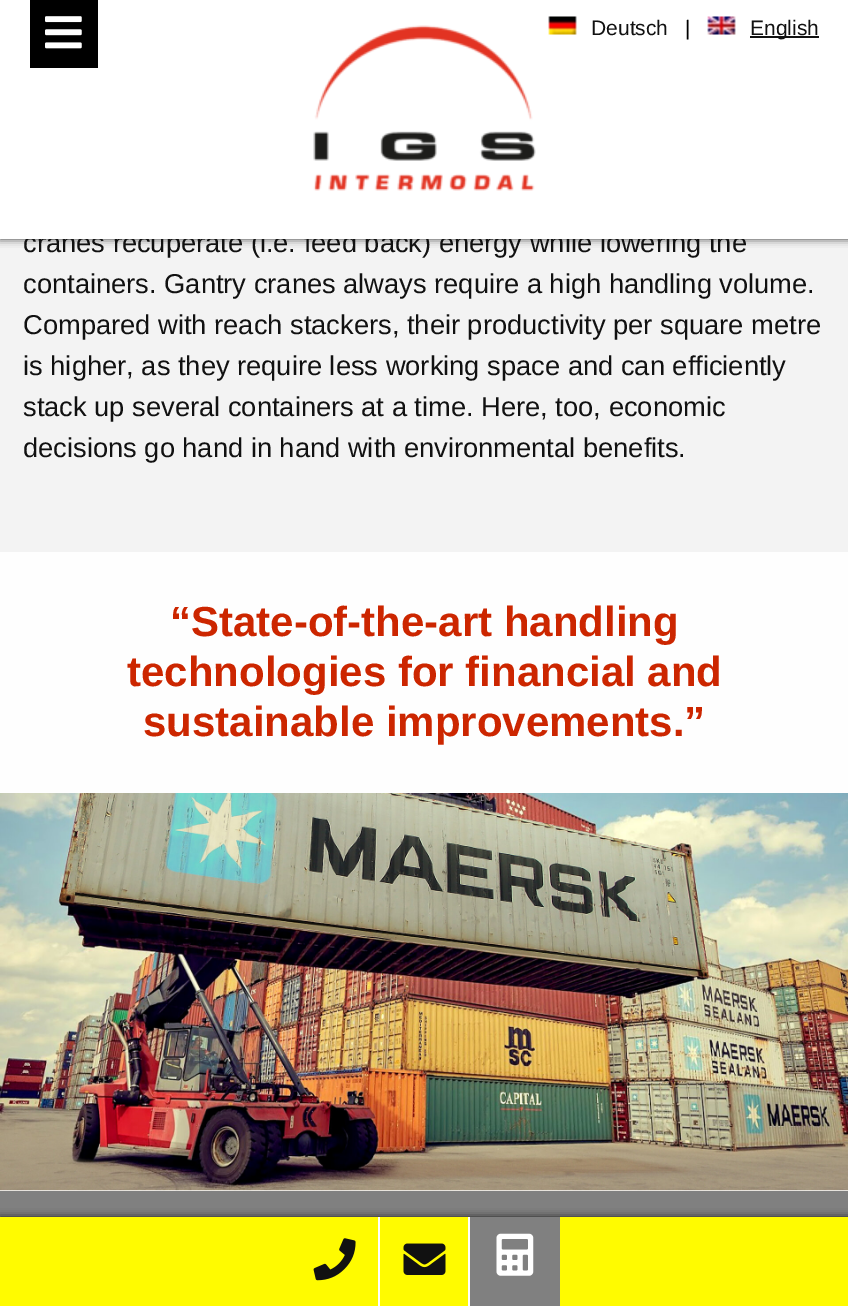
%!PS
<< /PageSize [848 1306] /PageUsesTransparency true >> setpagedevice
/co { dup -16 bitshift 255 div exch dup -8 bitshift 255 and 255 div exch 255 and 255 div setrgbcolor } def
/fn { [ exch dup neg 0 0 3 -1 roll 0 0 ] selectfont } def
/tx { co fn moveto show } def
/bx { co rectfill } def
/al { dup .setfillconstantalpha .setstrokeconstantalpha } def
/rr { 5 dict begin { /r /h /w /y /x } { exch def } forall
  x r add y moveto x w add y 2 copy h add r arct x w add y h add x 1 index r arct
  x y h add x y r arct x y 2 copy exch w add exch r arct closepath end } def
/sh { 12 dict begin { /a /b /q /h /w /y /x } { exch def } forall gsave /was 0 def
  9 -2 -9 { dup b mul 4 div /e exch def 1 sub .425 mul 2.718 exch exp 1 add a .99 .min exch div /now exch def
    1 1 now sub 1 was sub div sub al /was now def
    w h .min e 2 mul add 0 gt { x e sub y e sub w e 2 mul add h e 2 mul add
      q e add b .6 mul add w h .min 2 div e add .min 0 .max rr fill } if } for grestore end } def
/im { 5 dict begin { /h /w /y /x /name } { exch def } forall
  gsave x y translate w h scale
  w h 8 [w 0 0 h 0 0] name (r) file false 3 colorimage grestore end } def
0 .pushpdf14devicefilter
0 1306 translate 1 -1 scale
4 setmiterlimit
0 0 848 1306 16#FEFEFE bx
0 239 848 313 16#F3F3F3 bx
16#000000 co
0 0 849 239 0 4 .75 sh
(media/5.raw) 0 793 848 398 im
0 1191 848 26 16#808080 bx
16#000000 co
0 1217 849 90 0 4 .75 sh
0 1217 848 89 16#FFFB00 bx
378 1217 2 89 16#FFFFFF bx
(media/6.raw) 313 1238 43 43 im
468 1217 2 89 16#FFFFFF bx
(media/7.raw) 403 1243 43 32 im
470 1217 90 89 16#808080 bx
(media/8.raw) 496 1233 38 43 im
(cranes recuperate \(i.e. feed back\) energy while lowering the) 23 252 /LiberationSans-Regular 27.3 16#111111 tx
0 0 848 239 16#FFFFFF bx
30 0 68 68 16#000000 bx
(media/1.raw) 45 16 37 33 im
750 36 69 2 16#111111 bx
(English) 750 35 /LiberationSans-Regular 21 16#111111 tx
(media/4.raw) 707 16 29 19 im
(|) 685 35 /LiberationSans-Regular 21 16#000000 tx
(Deutsch) 591 35 /LiberationSans-Regular 21 16#111111 tx
(media/3.raw) 548 16 29 19 im
(media/2.raw) 313 25 223 166 im
(containers. Gantry cranes always require a high handling volume.) 23 293 /LiberationSans-Regular 27.3 16#111111 tx
(Compared with reach stackers, their productivity per square metre) 23 334 /LiberationSans-Regular 27.3 16#111111 tx
(is higher, as they require less working space and can efficiently) 23 375 /LiberationSans-Regular 27.3 16#111111 tx
(stack up several containers at a time. Here, too, economic) 23 416 /LiberationSans-Regular 27.3 16#111111 tx
(decisions go hand in hand with environmental benefits.) 23 457 /LiberationSans-Regular 27.3 16#111111 tx
(“State-of-the-art handling) 170 636 /LiberationSans-Bold 42 16#CC2600 tx
(technologies for financial and) 127 686 /LiberationSans-Bold 42 16#CC2600 tx
(sustainable improvements.”) 143 736 /LiberationSans-Bold 42 16#CC2600 tx
.poppdf14devicefilter showpage
